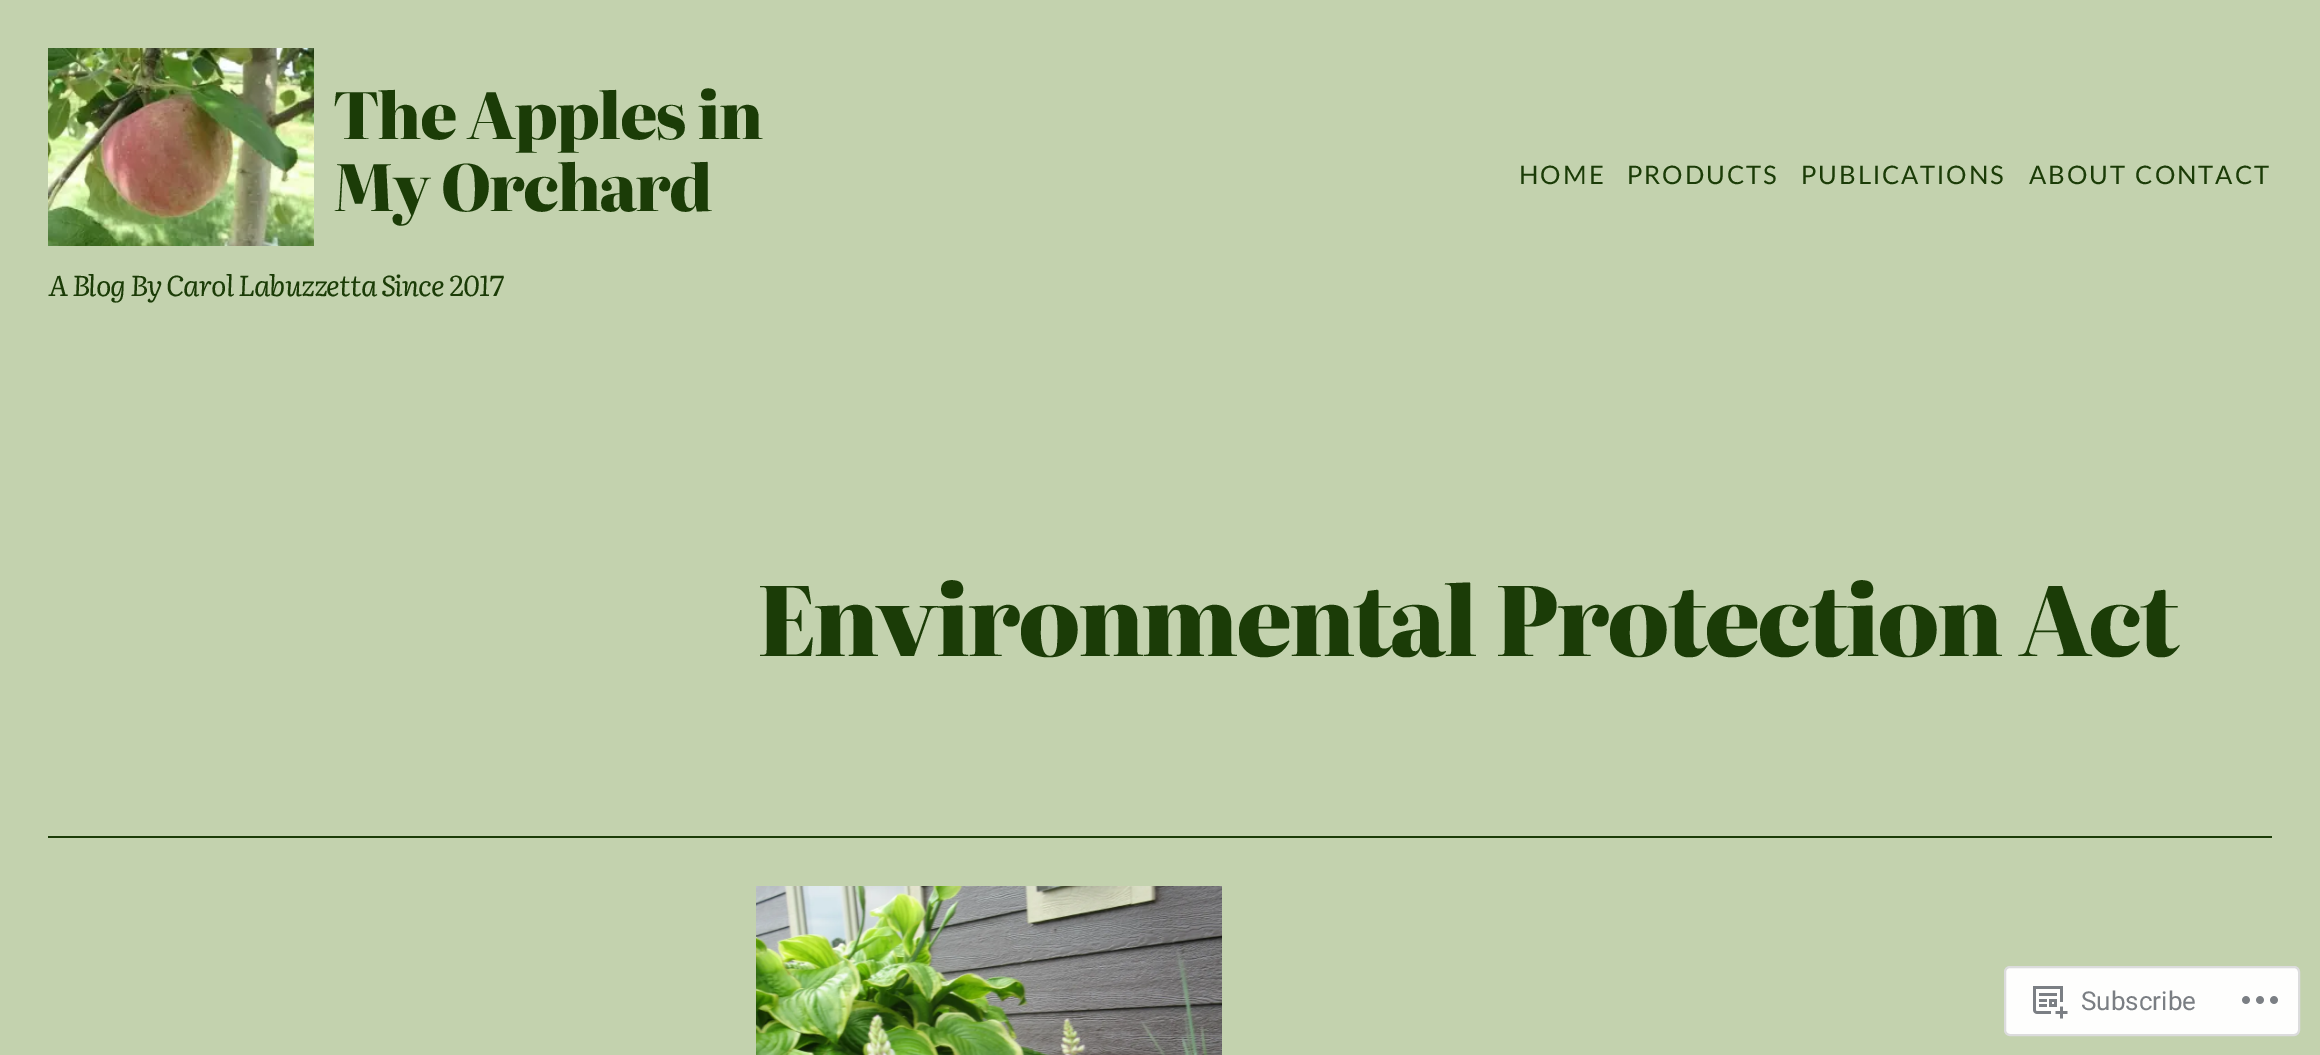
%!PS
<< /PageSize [2320 1055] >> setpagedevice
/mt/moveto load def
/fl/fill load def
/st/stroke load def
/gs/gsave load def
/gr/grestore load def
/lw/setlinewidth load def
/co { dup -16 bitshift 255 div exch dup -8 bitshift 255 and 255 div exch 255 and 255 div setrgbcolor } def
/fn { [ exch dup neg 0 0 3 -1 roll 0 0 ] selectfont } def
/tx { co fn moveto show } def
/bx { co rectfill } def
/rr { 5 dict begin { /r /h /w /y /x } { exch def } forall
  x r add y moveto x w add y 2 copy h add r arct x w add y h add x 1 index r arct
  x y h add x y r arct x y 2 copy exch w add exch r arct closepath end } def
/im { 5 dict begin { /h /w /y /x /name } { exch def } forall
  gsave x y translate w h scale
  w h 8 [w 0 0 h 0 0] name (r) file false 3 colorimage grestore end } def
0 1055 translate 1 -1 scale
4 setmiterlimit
0 0 2320 1055 16#C3D2AE bx
(media/1.raw) 48 48 266 198 im
48 836 2224 2 16#1B3C07 bx
(media/2.raw) 756 886 466 169 im
16#FEFEFD co
2005 967 294 68 5 rr gs fl gr
16#DCDCDD co
2 lw
st
(media/3.raw) 2033 986 35 33 im
(media/4.raw) 2242 996 36 8 im
/Literata-ExtraBold 64 fn
16#1B3C07 co
333 139 mt -1.9 0 (The Apples in) ashow
333 211 mt -1.9 0 (My Orchard) ashow
/Literata-Italic 28.75 fn
48 296 mt -.85 0 (A Blog By Carol Labuzzetta Since 2017) ashow
/Lato-Regular 25.5 fn
1519 184 mt 2 0 (HOME) ashow
1627 184 mt 2 0 (PRODUCTS) ashow
1801 184 mt 2 0 (PUBLICATIONS) ashow
2029 184 mt 2 0 (ABOUT CONTACT) ashow
/Literata-ExtraBold 96 fn
756 656 mt -2.9 0 (Environmental Protection Act) ashow
(Subscribe) 2081 1010 /Roboto-Regular 26 16#7A7E83 tx
showpage
